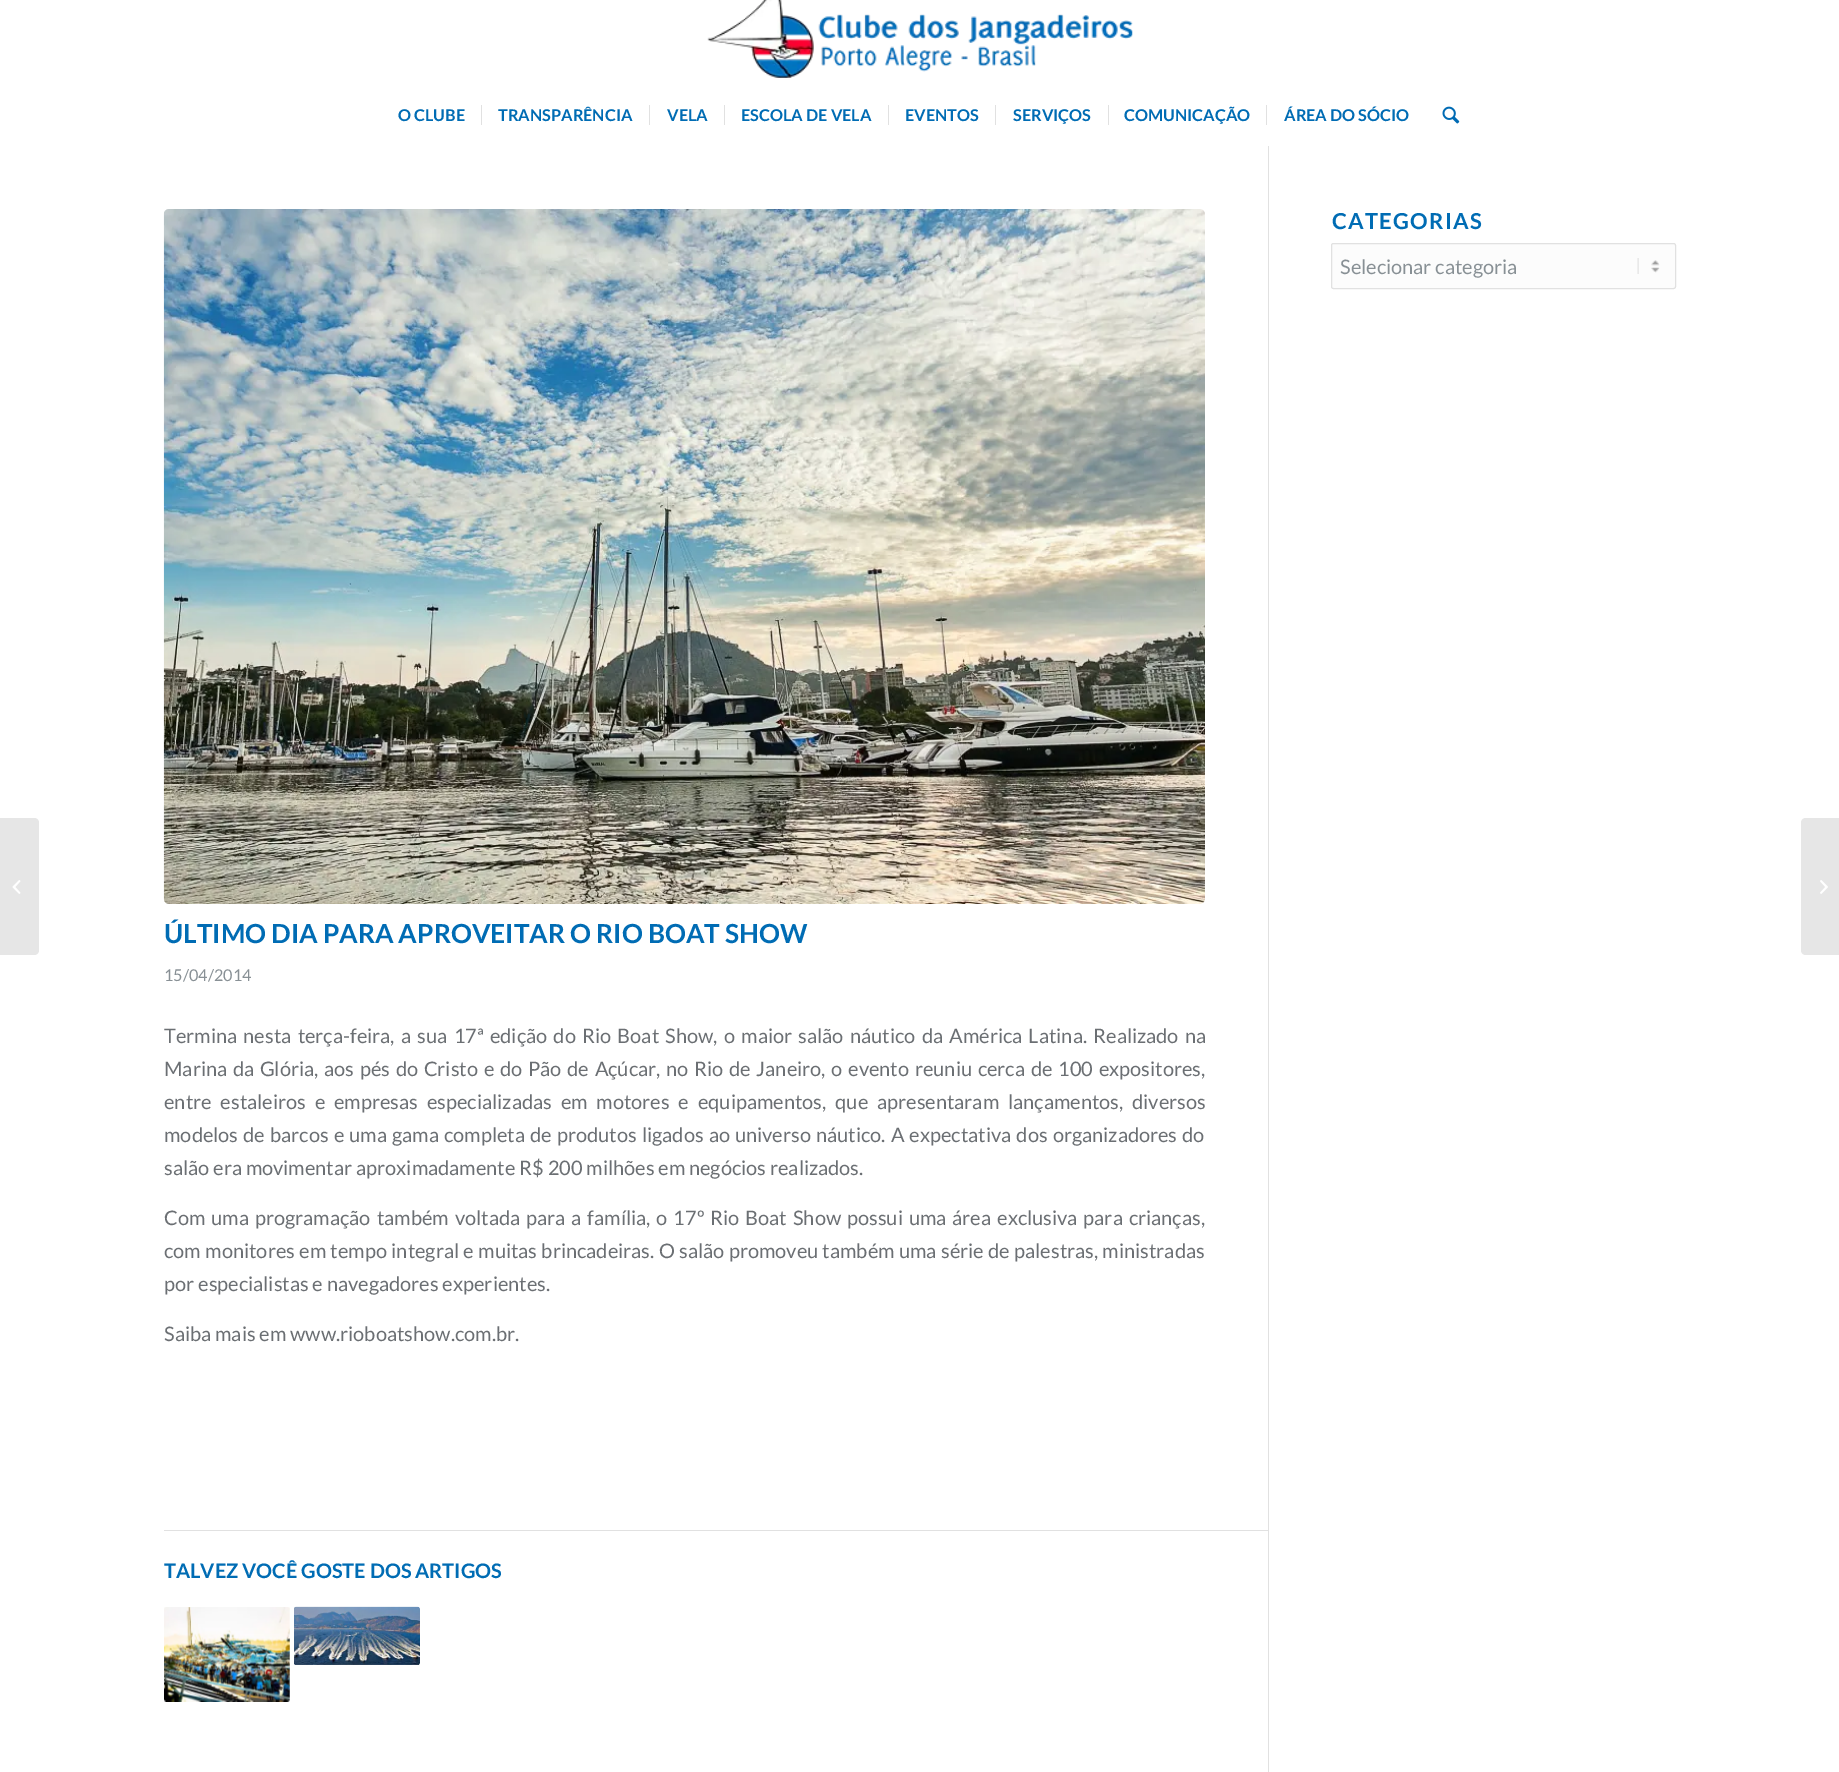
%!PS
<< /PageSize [1839 1772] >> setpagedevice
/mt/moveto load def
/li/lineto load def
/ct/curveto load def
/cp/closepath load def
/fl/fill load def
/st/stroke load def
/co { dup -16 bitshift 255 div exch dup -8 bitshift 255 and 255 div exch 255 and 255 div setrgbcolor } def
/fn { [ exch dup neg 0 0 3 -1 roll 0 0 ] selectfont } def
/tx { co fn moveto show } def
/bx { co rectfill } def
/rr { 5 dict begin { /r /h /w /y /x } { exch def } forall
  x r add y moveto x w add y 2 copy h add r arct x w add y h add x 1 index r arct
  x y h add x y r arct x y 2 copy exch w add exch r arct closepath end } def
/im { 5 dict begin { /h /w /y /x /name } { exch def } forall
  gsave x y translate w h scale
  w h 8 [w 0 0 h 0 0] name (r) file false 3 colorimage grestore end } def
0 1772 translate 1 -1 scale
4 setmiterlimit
0 0 1839 1772 16#FFFFFF bx
(media/1.raw) 707 0 426 78 im
481 105 1 20 16#E1E1E1 bx
649 105 1 20 16#E1E1E1 bx
724 105 1 20 16#E1E1E1 bx
888 105 1 20 16#E1E1E1 bx
995 105 1 20 16#E1E1E1 bx
1108 105 1 20 16#E1E1E1 bx
1266 105 1 20 16#E1E1E1 bx
(media/2.raw) 1442 106 18 18 im
16#E6E6E6 co
0 818 mt 34 818 li 37 818 39 820 39 823 ct 39 950 li 39 953 37 955 34 955 ct 0 955 li cp fl
(media/3.raw) 12 880 9 14 im
16#FCFCFC co
1331 243 345 46 2.5 rr fl
(media/4.raw) 1637 258 23 16 im
16#E1E1E1 co
1331.5 243.5 344 45 2 rr st
1268 146 1 1626 16#E1E1E1 bx
(media/5.raw) 163 209 1042 695 im
164 1530 1104 1 16#E1E1E1 bx
(media/6.raw) 164 1607 126 95 im
(media/7.raw) 294 1606 126 59 im
16#E6E6E6 co
1806 818 mt 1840 818 li 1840 955 li 1806 955 li 1803 955 1801 953 1801 950 ct 1801 823 li 1801 820 1803 818 1806 818 ct cp fl
(media/8.raw) 1820 880 8 14 im
(O CLUBE) 398 121 /Lato-Bold 16.25 16#006CB4 tx
(TRANSPARÊNCIA) 498 121 /Lato-Bold 16.25 16#006CB4 tx
(VELA) 667 121 /Lato-Bold 16.25 16#006CB4 tx
(ESCOLA DE VELA) 741 121 /Lato-Bold 16.25 16#006CB4 tx
(EVENTOS) 905 121 /Lato-Bold 16.25 16#006CB4 tx
(SERVIÇOS) 1013 121 /Lato-Bold 16.25 16#006CB4 tx
(COMUNICAÇÃO) 1124 121 /Lato-Bold 16.25 16#006CB4 tx
(ÁREA DO SÓCIO) 1284 121 /Lato-Bold 16.25 16#006CB4 tx
/Lato-Bold 22 fn
1332 229 mt 1.25 0 (CATEGORIAS) ashow
(Selecionar categoria) 1340 274 /Lato-Regular 20 16#889095 tx
(ÚLTIMO DIA PARA APROVEITAR O RIO BOAT SHOW) 164 943 /Lato-Bold 26.25 16#006CB4 tx
(15/04/2014) 164 981 /Lato-Regular 16.25 16#889095 tx
/Lato-Regular 20 fn
16#6B6F73 co
164 1043 mt 2.4 0 32 (Termina nesta terça-feira, a sua 17ª edição do Rio Boat Show, o maior salão náutico da América Latina. Realizado na) widthshow
164 1076 mt 1.9 0 32 (Marina da Glória, aos pés do Cristo e do Pão de Açúcar, no Rio de Janeiro, o evento reuniu cerca de 100 expositores,) widthshow
164 1109 mt 5 0 32 (entre estaleiros e empresas especializadas em motores e equipamentos, que apresentaram lançamentos, diversos) widthshow
164 1142 mt 1.25 0 32 (modelos de barcos e uma gama completa de produtos ligados ao universo náutico. A expectativa dos organizadores do) widthshow
(salão era movimentar aproximadamente R$ 200 milhões em negócios realizados.) 164 1175 /Lato-Regular 20 16#6B6F73 tx
164 1225 mt 2.1 0 32 (Com uma programação também voltada para a família, o 17º Rio Boat Show possui uma área exclusiva para crianças,) widthshow
164 1258 mt .5 0 32 (com monitores em tempo integral e muitas brincadeiras. O salão promoveu também uma série de palestras, ministradas) widthshow
(por especialistas e navegadores experientes.) 164 1291 /Lato-Regular 20 16#6B6F73 tx
(Saiba mais em www.rioboatshow.com.br.) 164 1341 /Lato-Regular 20 16#6B6F73 tx
(TALVEZ VOCÊ GOSTE DOS ARTIGOS) 164 1578 /Lato-Bold 20 16#006CB4 tx
showpage
